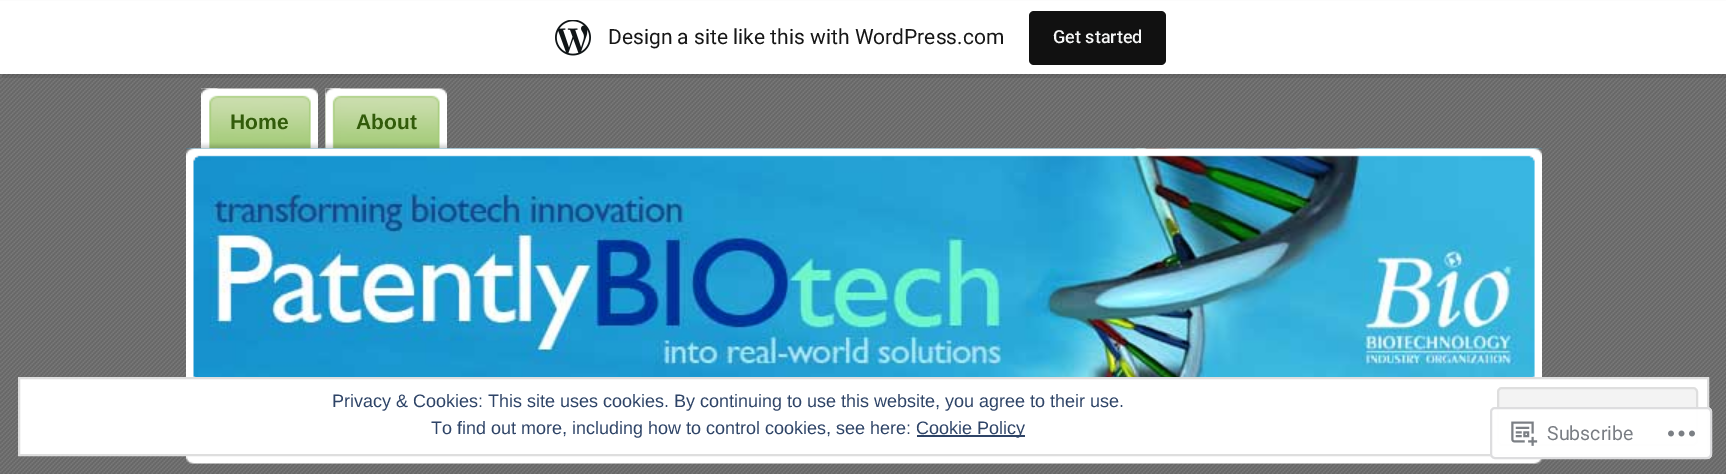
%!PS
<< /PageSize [1726 474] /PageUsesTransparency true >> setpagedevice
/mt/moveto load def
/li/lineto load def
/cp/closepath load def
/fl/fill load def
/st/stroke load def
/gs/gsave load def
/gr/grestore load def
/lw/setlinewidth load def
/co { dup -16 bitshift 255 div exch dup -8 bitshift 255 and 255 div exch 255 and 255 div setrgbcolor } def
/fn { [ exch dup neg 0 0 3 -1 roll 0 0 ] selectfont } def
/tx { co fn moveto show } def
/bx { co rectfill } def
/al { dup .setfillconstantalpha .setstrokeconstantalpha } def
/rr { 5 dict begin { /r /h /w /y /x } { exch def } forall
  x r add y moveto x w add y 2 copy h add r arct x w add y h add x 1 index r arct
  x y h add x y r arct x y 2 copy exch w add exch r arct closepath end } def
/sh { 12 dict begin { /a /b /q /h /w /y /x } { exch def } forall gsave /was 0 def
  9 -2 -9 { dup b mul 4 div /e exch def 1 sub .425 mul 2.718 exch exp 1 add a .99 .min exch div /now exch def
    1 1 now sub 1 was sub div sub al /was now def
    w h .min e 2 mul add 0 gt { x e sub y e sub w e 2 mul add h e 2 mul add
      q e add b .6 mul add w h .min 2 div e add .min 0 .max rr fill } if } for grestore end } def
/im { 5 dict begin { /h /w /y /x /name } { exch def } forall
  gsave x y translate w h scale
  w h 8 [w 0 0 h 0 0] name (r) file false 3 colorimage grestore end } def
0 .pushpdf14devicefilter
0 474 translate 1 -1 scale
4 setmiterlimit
0 0 1726 474 16#FFFFFF bx
(media/1.raw) 0 74 1726 400 im
16#000000 co
0 2 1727 73 0 1.5 .05 sh
0.08 al
2 74 mt 2 78 li 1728 78 li 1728 5 li 1726 5 li 1726 74 li cp fl
1 al
0 1 1726 73 16#FFFFFF bx
(media/2.raw) 555 20 36 36 im
16#111111 co
1029 11 137 54 5 rr fl
(media/3.raw) 201 88 117 61 im
(media/4.raw) 201 88 17 61 im
(media/5.raw) 325 88 122 61 im
(media/6.raw) 325 88 16 61 im
(media/7.raw) 186 148 1356 229 im
(media/8.raw) 186 148 1356 316 im
16#FFFFFF co
19 378 mt 1708 378 li 1708 455 li 19 455 li cp gs fl gr
16#DEDEDE co
2 lw
st
16#F3F3F3 co
1498 388 199 57 4 rr gs fl gr
16#DEDEDE co
st
917 435 108 2 16#2E4467 bx
0.98 al
16#FFFFFF co
1490 407 222 52 5 rr fl
16#DCDCDE co
1491 408 220 50 4 rr st
1 al
(media/9.raw) 1511 421 27 25 im
(media/10.raw) 1668 430 27 7 im
(Design a site like this with WordPress.com) 608 44 /Roboto-Regular 21 16#171717 tx
(Get started) 1053 43 /Roboto-Medium 18 16#F6F7F7 tx
(Home) 230 129 /LiberationSans-Bold 21 16#325B0A tx
(About) 356 129 /LiberationSans-Bold 21 16#325B0A tx
(Privacy & Cookies: This site uses cookies. By continuing to use this website, you agree to their use.) 332 407 /LiberationSans-Regular 18 16#2E4467 tx
(To find out more, including how to control cookies, see here:) 431 434 /LiberationSans-Regular 18 16#2E4467 tx
(Cookie Policy) 916 434 /LiberationSans-Regular 18 16#2E4467 tx
(Subscribe) 1547 440 /Roboto-Regular 19.5 16#7A7E84 tx
.poppdf14devicefilter showpage
